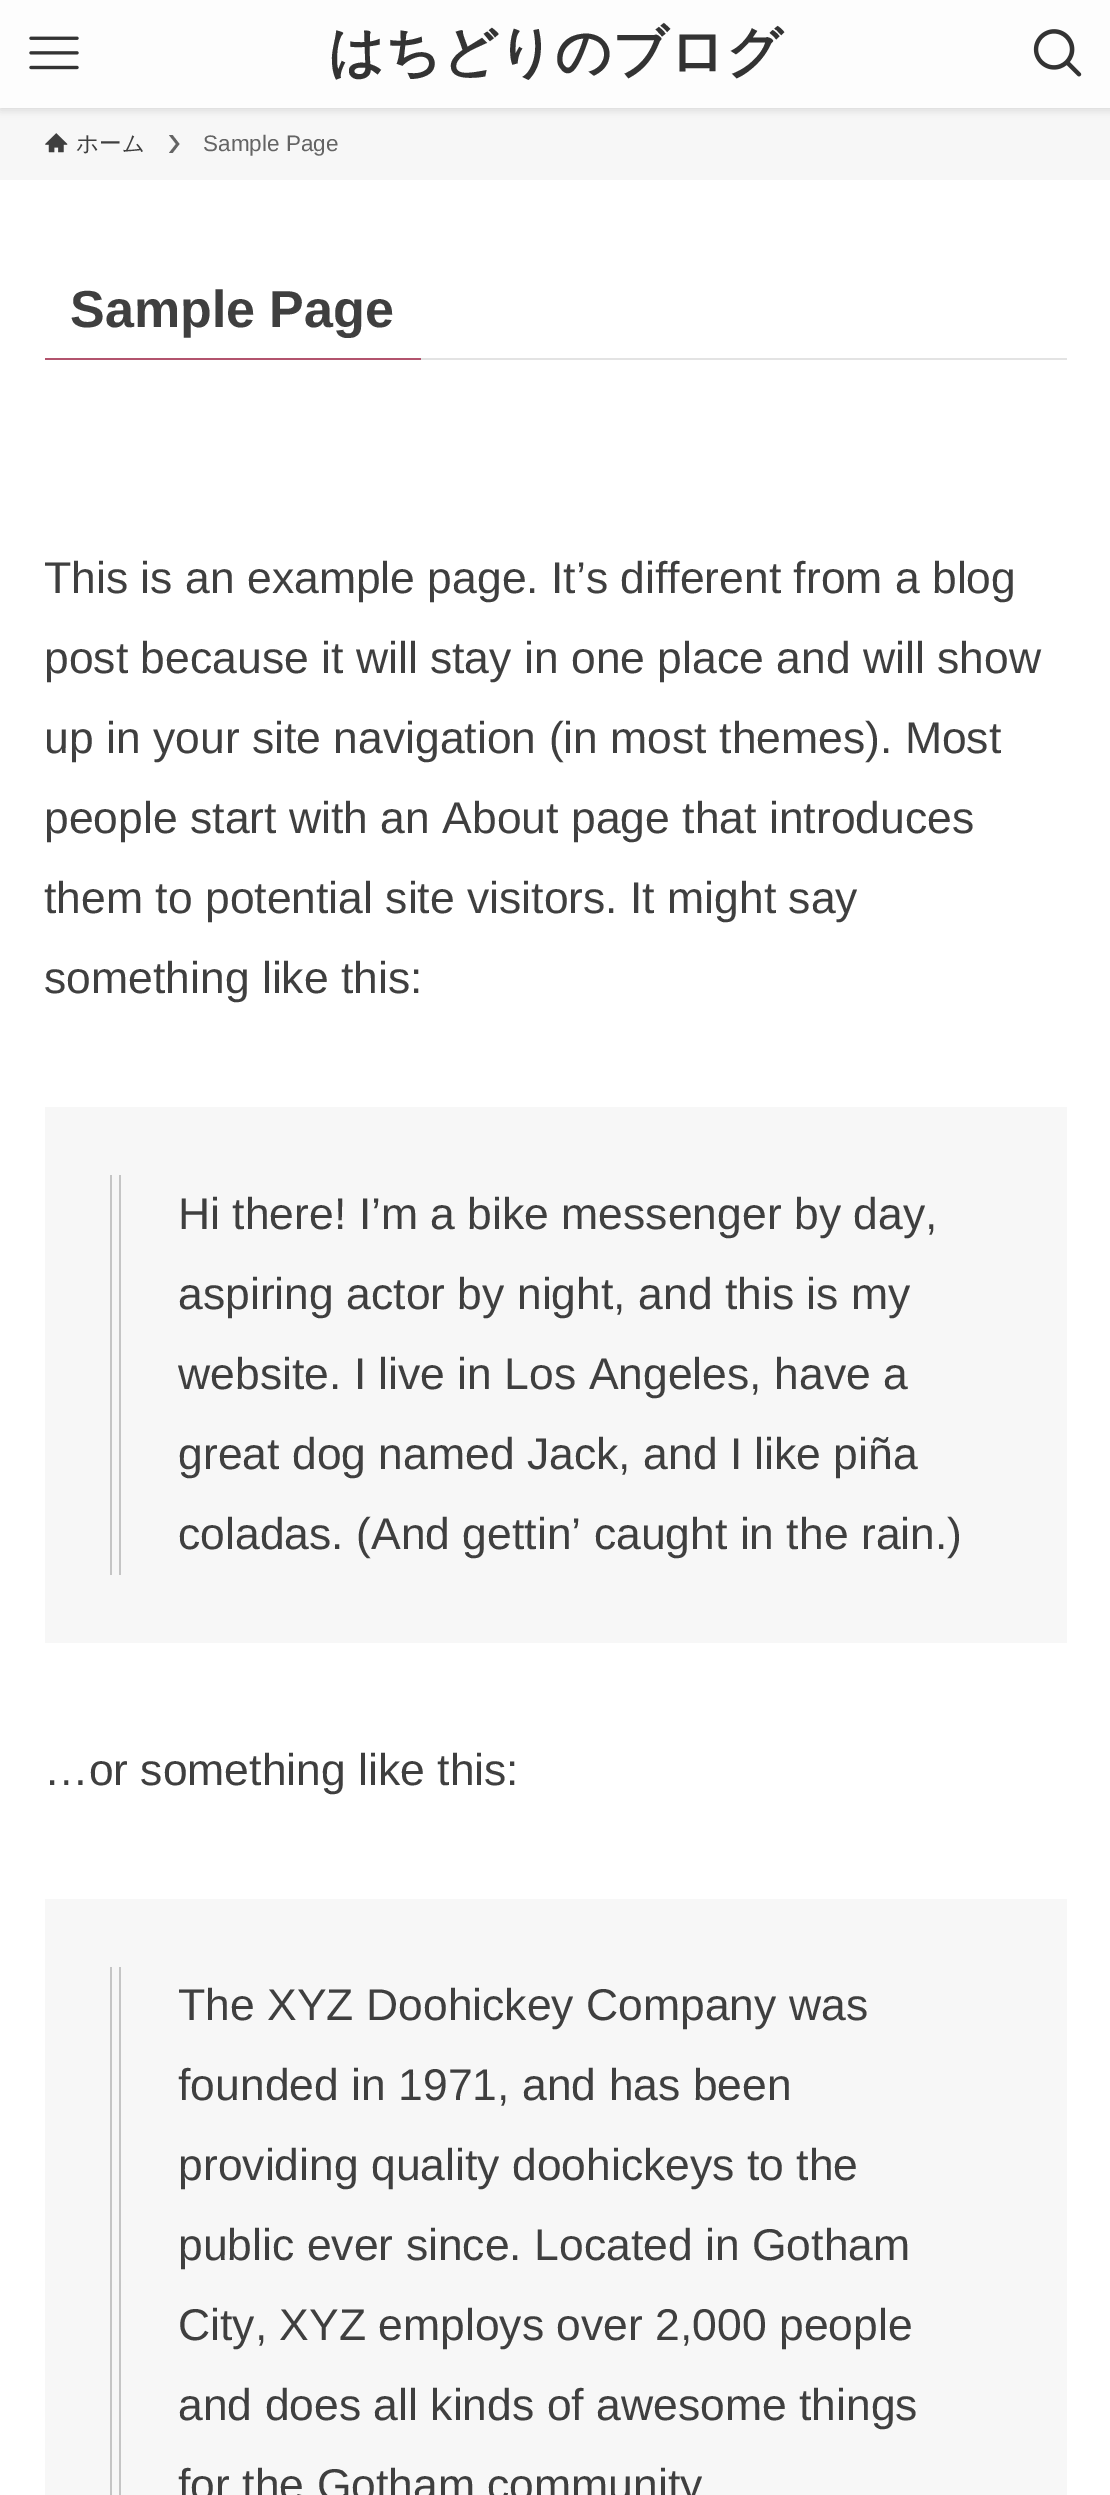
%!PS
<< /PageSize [1110 2495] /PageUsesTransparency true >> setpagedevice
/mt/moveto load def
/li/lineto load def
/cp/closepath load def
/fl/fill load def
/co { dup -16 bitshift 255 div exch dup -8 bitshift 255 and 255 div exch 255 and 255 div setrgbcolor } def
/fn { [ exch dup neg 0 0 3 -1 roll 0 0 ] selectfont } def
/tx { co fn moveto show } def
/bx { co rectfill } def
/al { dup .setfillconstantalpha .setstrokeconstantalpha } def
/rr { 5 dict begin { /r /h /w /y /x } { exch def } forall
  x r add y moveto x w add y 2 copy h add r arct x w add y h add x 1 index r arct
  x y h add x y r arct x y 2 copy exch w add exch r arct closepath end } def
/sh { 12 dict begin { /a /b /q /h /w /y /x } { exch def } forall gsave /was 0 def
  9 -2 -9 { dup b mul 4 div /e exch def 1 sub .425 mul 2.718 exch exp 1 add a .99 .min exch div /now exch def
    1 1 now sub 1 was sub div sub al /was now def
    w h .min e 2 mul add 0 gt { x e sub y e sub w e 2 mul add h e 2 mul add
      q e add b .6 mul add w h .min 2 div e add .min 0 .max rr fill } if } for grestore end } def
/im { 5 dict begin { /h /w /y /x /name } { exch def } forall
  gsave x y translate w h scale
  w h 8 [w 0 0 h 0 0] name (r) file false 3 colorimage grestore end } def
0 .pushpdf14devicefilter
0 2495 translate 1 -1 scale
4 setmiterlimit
0 0 1110 2495 16#FFFFFF bx
0 108 1110 72 16#F7F7F7 bx
16#000000 co
0 2 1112 108 0 4.5 .12 sh
0 0 1110 108 16#FDFDFD bx
(media/1.raw) 29 36 50 34 im
(media/2.raw) 1033 29 49 48 im
(media/3.raw) 45 133 23 20 im
16#646464 co
172.5 135 mt 169 135 li 176 144 li 169 153 li 172.5 153 li 179.5 144 li cp fl
421 358 646 2 16#E3E3E3 bx
45 358 376 2 16#B2536D bx
45 1107 1022 536 16#F7F7F7 bx
119 1175 2 400 16#C5C5C5 bx
110 1175 2 400 16#C5C5C5 bx
45 1899 1022 596 16#F7F7F7 bx
119 1967 2 528 16#C5C5C5 bx
110 1967 2 528 16#C5C5C5 bx
(はちどりのブログ) 328 71 /WenQuanYiZenHei-Bold 55.5 16#333333 tx
(ホーム) 76 151 /WenQuanYiZenHei-Medium 22.5 16#3F3F3F tx
(Sample Page) 203 151 /LiberationSans-Regular 22.5 16#646464 tx
(Sample Page) 70 327 /LiberationSans-Bold 52 16#3F3F3F tx
(This is an example page. It’s different from a blog) 44 593 /LiberationSans-Regular 44.5 16#3F3F3F tx
(post because it will stay in one place and will show) 44 673 /LiberationSans-Regular 44.5 16#3F3F3F tx
(up in your site navigation \(in most themes\). Most) 44 753 /LiberationSans-Regular 44.5 16#3F3F3F tx
(people start with an About page that introduces) 44 833 /LiberationSans-Regular 44.5 16#3F3F3F tx
(them to potential site visitors. It might say) 44 913 /LiberationSans-Regular 44.5 16#3F3F3F tx
(something like this:) 44 993 /LiberationSans-Regular 44.5 16#3F3F3F tx
(Hi there! I’m a bike messenger by day,) 178 1229 /LiberationSans-Regular 44.5 16#3F3F3F tx
(aspiring actor by night, and this is my) 178 1309 /LiberationSans-Regular 44.5 16#3F3F3F tx
(website. I live in Los Angeles, have a) 178 1389 /LiberationSans-Regular 44.5 16#3F3F3F tx
(great dog named Jack, and I like piña) 178 1469 /LiberationSans-Regular 44.5 16#3F3F3F tx
(coladas. \(And gettin’ caught in the rain.\)) 178 1549 /LiberationSans-Regular 44.5 16#3F3F3F tx
(…or something like this:) 44 1785 /LiberationSans-Regular 44.5 16#3F3F3F tx
(The XYZ Doohickey Company was) 178 2020 /LiberationSans-Regular 44.5 16#3F3F3F tx
(founded in 1971, and has been) 178 2100 /LiberationSans-Regular 44.5 16#3F3F3F tx
(providing quality doohickeys to the) 178 2180 /LiberationSans-Regular 44.5 16#3F3F3F tx
(public ever since. Located in Gotham) 178 2260 /LiberationSans-Regular 44.5 16#3F3F3F tx
(City, XYZ employs over 2,000 people) 178 2340 /LiberationSans-Regular 44.5 16#3F3F3F tx
(and does all kinds of awesome things) 178 2420 /LiberationSans-Regular 44.5 16#3F3F3F tx
(for the Gotham community) 178 2500 /LiberationSans-Regular 44.5 16#3F3F3F tx
.poppdf14devicefilter showpage
